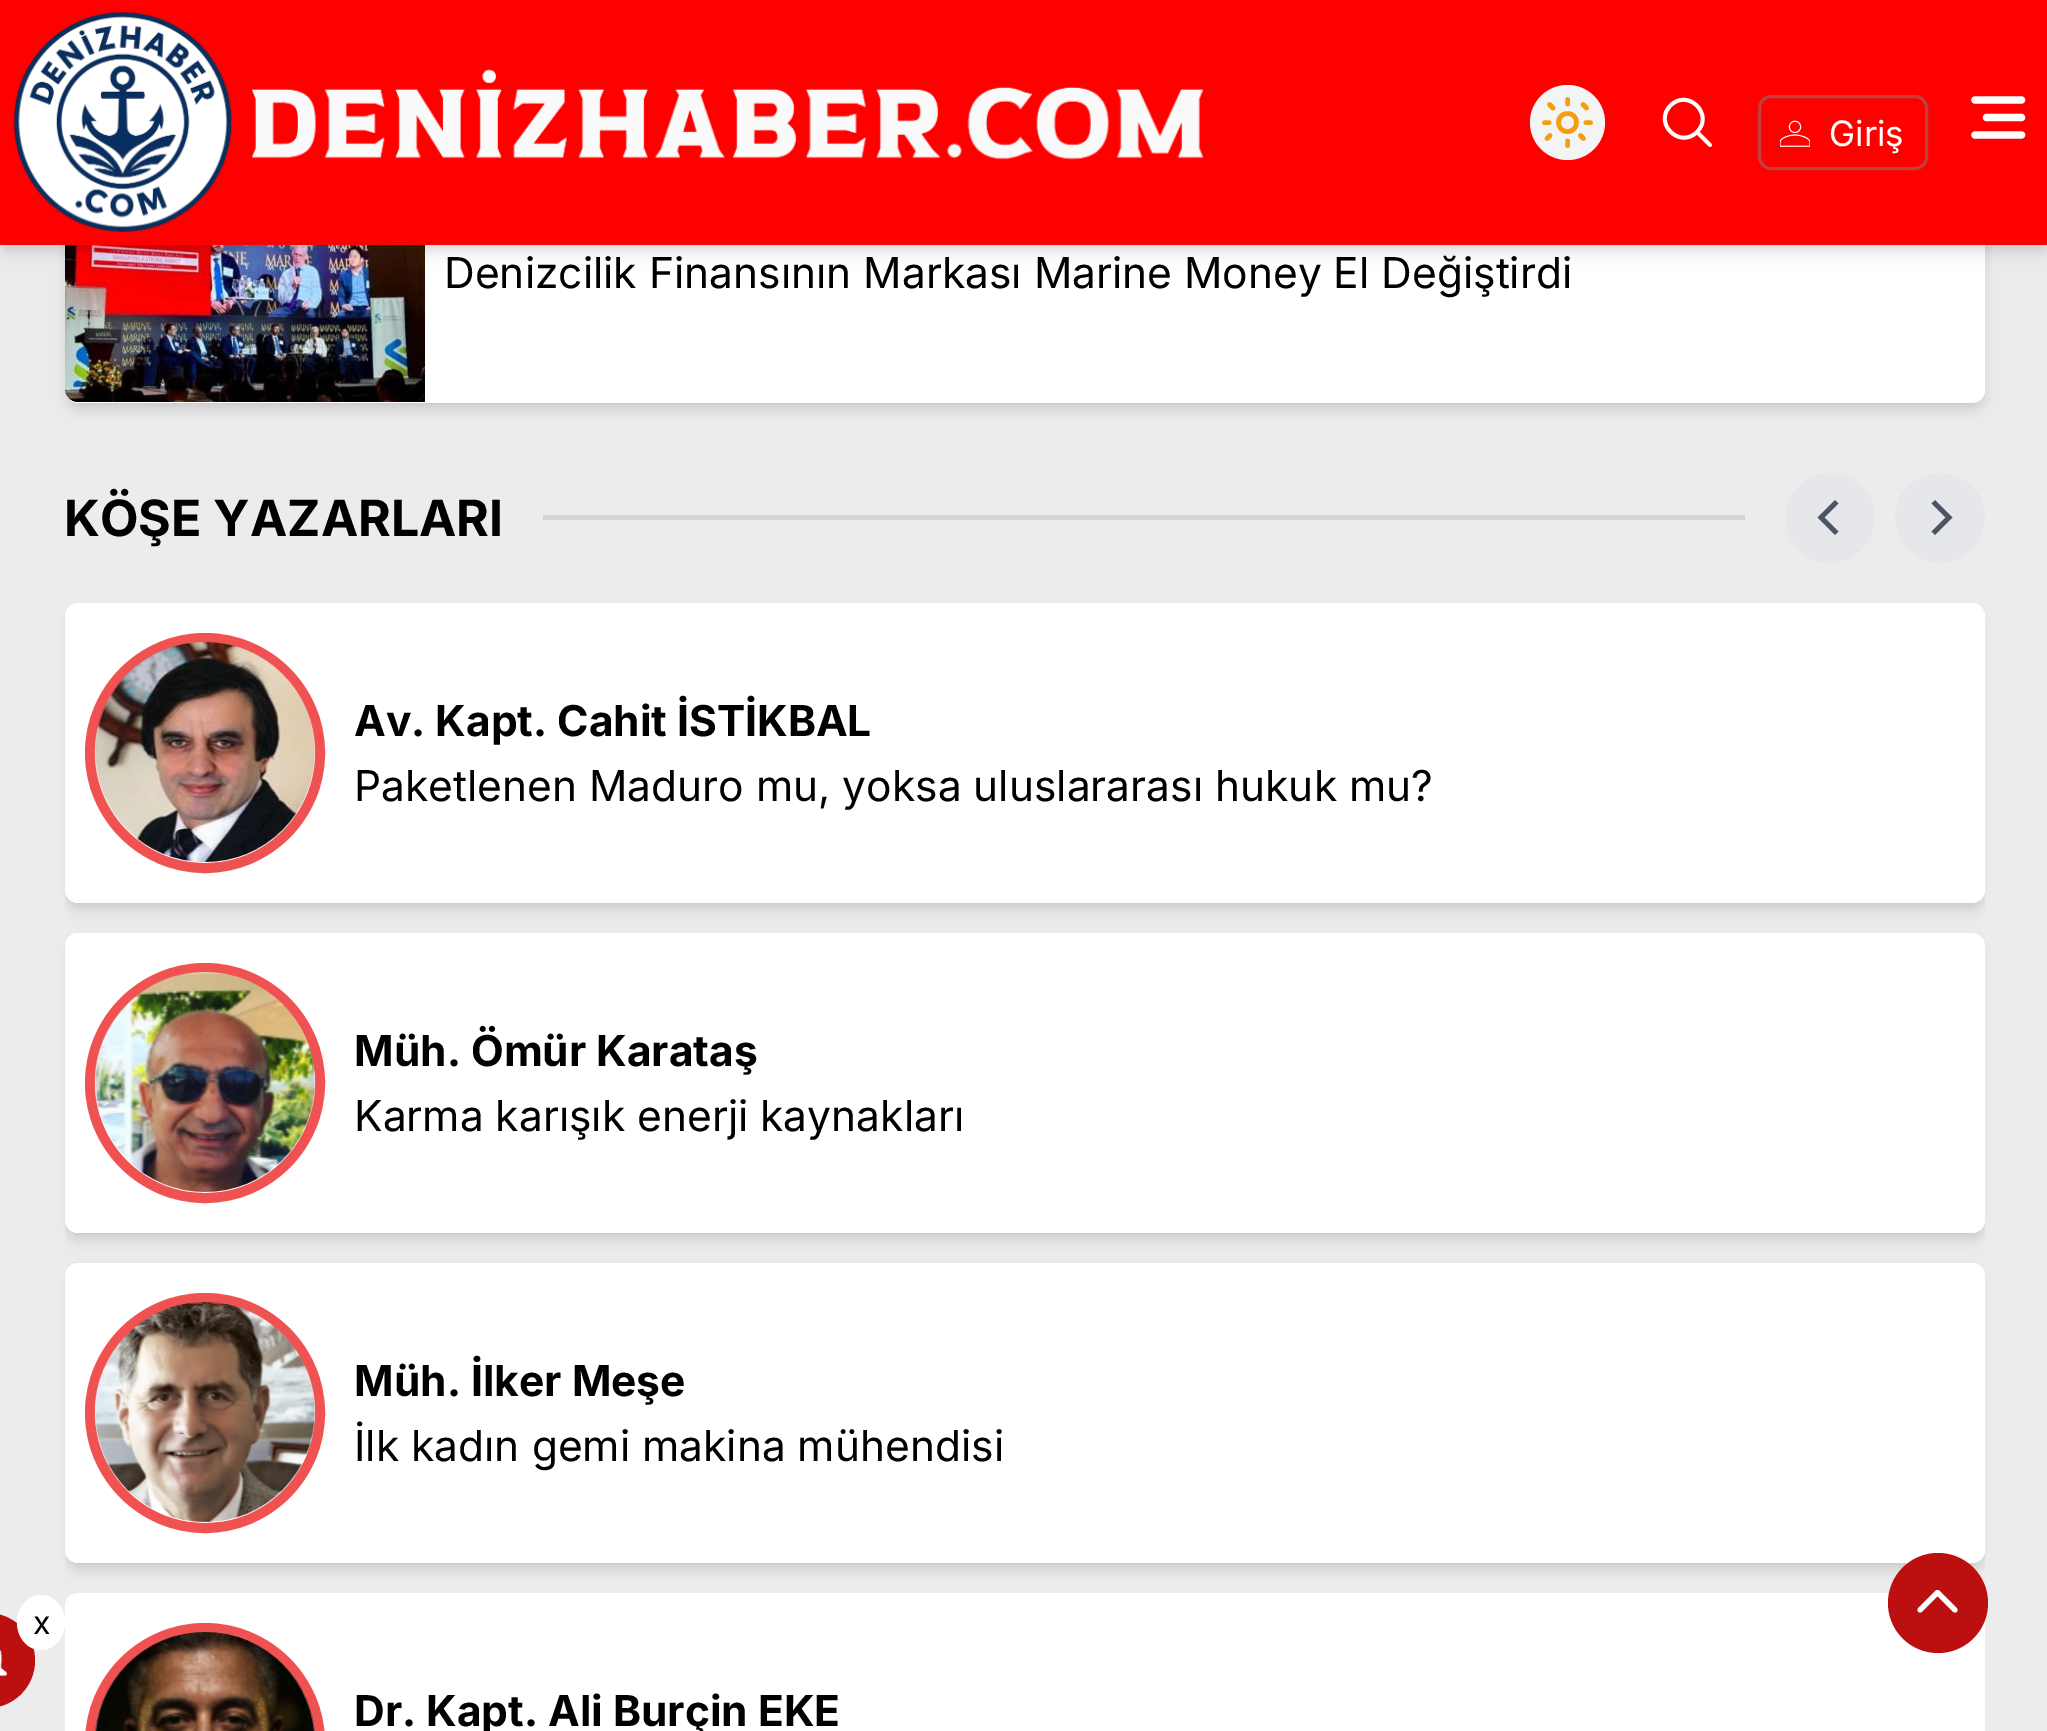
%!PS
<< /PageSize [2047 1731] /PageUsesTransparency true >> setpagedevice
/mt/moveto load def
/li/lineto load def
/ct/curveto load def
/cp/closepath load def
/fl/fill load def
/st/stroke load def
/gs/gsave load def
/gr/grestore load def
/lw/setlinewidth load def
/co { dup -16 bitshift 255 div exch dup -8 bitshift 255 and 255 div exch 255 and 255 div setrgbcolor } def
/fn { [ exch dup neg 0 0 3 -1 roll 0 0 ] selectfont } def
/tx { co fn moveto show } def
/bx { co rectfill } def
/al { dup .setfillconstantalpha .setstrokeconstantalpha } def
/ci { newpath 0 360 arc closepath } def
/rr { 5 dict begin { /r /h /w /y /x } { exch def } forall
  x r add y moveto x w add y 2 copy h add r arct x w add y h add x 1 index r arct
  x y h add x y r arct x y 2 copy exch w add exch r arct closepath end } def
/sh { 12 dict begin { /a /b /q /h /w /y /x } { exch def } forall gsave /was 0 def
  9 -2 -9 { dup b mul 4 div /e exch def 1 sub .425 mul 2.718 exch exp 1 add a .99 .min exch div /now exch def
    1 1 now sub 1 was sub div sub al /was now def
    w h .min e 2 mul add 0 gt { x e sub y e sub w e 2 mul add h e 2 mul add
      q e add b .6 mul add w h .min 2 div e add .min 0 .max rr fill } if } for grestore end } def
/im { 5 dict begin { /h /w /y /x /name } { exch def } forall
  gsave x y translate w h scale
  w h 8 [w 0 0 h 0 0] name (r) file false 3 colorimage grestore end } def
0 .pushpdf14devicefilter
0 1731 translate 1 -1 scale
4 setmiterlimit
0 0 2047 1731 16#ECECEC bx
16#000000 co
70 213 1910 190 8 5 .1 sh
68 215 1915 195 10 7.5 .1 sh
16#FFFFFF co
65 203 1920 200 13 rr fl
(media/4.raw) 65 245 360 157 im
16#000000 co
5 10 2038 235 0 5 .1 sh
3 13 2042 240 0 7.5 .1 sh
0 0 2047 245 16#FF0000 bx
(media/1.raw) 13 11 1191 221 im
16#F3F4F6 co
1567.5 122.5 37.5 ci fl
16#F59E0B co
4.6 lw
1 setlinecap
1 setlinejoin
1567.5 99.5 mt 1567.5 104 li 1567.5 141 mt 1567.5 145.5 li 1590.5 122.5 mt 1586 122.5 li 1549 122.5 mt 1544.5 122.5 li 1547 138.5 mt 1550 135.5 li 1580.5 135.5 mt 1583.5 138.5 li 1549.5 104.5 mt 1553 108 li 1583 104.5 mt 1586.5 108 li 1567.5 113.5 mt 1555.5 113.5 1555.5 131.5 1567.5 131.5 ct 1579.5 131.5 1579.5 113.5 1567.5 113.5 ct cp st
16#FFFFFF co
3.8 lw
1710 145 mt 1697 132 li 1697 132 mt 1714.5 114.5 1688 88 1670.5 105.5 ct 1653 123 1679.5 149.5 1697 132 ct cp st
16#C04040 co
3 lw
0 setlinecap
0 setlinejoin
1759.5 96.5 167 72 11.5 rr st
(media/2.raw) 1780 120 30 27 im
16#FFFFFF co
7.3 lw
1 setlinecap
1 setlinejoin
2021.5 100 mt 1975 100 li 2021.5 117.5 mt 1986.5 117.5 li 2021.5 135 mt 1975 135 li st
16#BC0F0F co
-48 1613 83 95 47.5 rr fl
16#FFFFFF co
41 1595 mt 54.5 1595 65 1607.5 65 1622.5 ct 65 1637.5 54.5 1650 41 1650 ct 27.5 1650 17 1637.5 17 1622.5 ct 17 1607.5 27.5 1595 41 1595 ct cp fl
(media/3.raw) 0 1650 7 26 im
543 515 1202 5 16#D1D5DB bx
16#E5E7EB co
1830 518 45 ci fl
16#4B5563 co
1817.5 517.5 mt 1835 500 li 1838.5 503.5 li 1824.5 517.5 li 1838.5 531.5 li 1835 535 li cp eofill
16#E5E7EB co
1940 518 45 ci fl
16#4B5563 co
1952.5 517.5 mt 1935 535 li 1931.5 531.5 li 1945.5 517.5 li 1931.5 503.5 li 1935 500 li cp eofill
16#000000 co
70 613 1910 290 8 5 .1 sh
gs
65 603 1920 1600 rectclip
68 615 1915 295 10 7.5 .1 sh
gr
16#FFFFFF co
65 603 1920 300 13 rr fl
16#F05252 co
10 lw
0 setlinecap
0 setlinejoin
205 753 115 ci st
(media/5.raw) 94 642 222 220 im
16#000000 co
70 943 1910 290 8 5 .1 sh
gs
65 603 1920 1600 rectclip
68 945 1915 295 10 7.5 .1 sh
gr
16#FFFFFF co
65 933 1920 300 13 rr fl
16#F05252 co
205 1083 115 ci st
(media/6.raw) 94 972 222 220 im
16#000000 co
70 1273 1910 290 8 5 .1 sh
gs
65 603 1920 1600 rectclip
68 1275 1915 295 10 7.5 .1 sh
gr
16#FFFFFF co
65 1263 1920 300 13 rr fl
16#F05252 co
205 1413 115 ci st
(media/7.raw) 94 1302 222 220 im
16#FFFFFF co
65 1593 1920 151 13 rr fl
16#F05252 co
90 1628 230 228 115 rr st
(media/8.raw) 95 1632 220 99 im
16#BC0F0F co
1938 1603 50 ci fl
16#FFFFFF co
5 lw
1 setlinecap
1 setlinejoin
1920 1610 mt 1937.5 1592.5 li 1955 1610 li st
(Giriş) 1829 146 /Inter-Regular 35 16#FFFFFF tx
(x) 33 1634 /Inter-Regular 32 16#000000 tx
(Denizcilik Finansının Markası Marine Money El Değiştirdi) 444 288 /Inter-Regular 42.5 16#000000 tx
(KÖŞE YAZARLARI) 64 536 /Inter-Bold 50 16#000000 tx
(Av. Kapt. Cahit İSTİKBAL) 354 736 /Inter-Bold 42.5 16#000000 tx
(Paketlenen Maduro mu, yoksa uluslararası hukuk mu?) 354 801 /Inter-Regular 42.5 16#000000 tx
(Müh. Ömür Karataş) 354 1066 /Inter-Bold 42.5 16#000000 tx
(Karma karışık enerji kaynakları) 354 1131 /Inter-Regular 42.5 16#000000 tx
(Müh. İlker Meşe) 354 1396 /Inter-Bold 42.5 16#000000 tx
(İlk kadın gemi makina mühendisi) 354 1461 /Inter-Regular 42.5 16#000000 tx
(Dr. Kapt. Ali Burçin EKE) 354 1726 /Inter-Bold 42.5 16#000000 tx
.poppdf14devicefilter showpage
